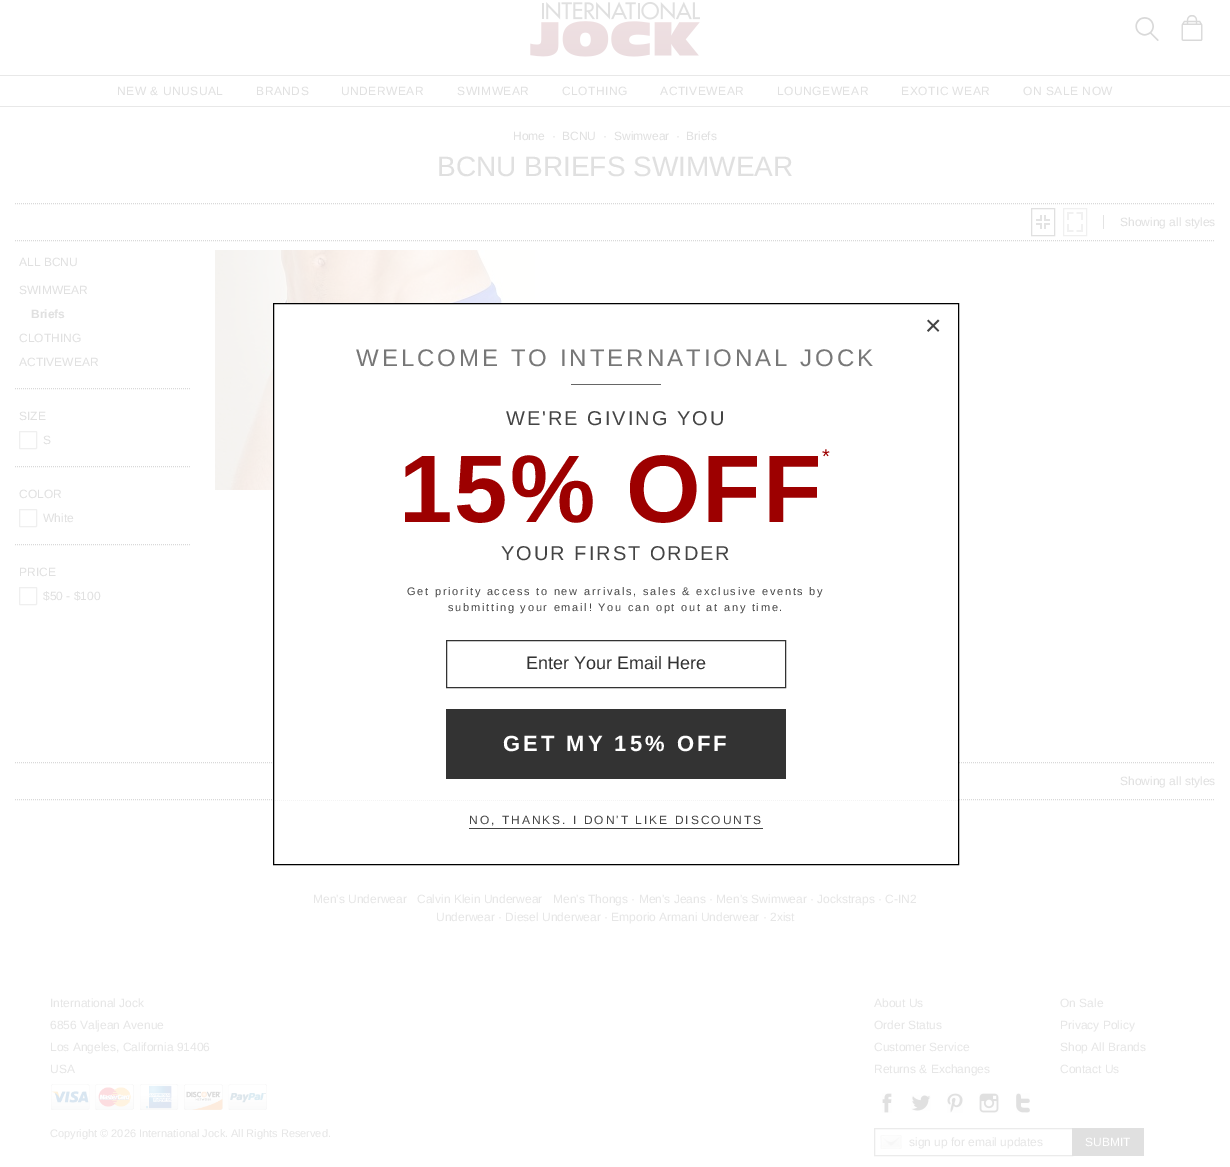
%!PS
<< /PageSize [1230 1167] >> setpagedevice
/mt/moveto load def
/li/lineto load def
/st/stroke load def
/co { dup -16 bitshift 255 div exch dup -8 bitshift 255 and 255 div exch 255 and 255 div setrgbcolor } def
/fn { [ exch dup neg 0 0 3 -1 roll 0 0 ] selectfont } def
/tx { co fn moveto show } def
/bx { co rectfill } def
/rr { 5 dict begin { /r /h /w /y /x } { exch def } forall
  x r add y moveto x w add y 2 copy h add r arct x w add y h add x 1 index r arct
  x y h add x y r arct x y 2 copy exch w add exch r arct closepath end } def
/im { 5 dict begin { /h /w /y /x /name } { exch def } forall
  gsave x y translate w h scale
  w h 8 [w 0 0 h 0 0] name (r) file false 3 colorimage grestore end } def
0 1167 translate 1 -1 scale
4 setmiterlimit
0 0 1230 1167 16#FFFFFF bx
(media/1.raw) 530 1 170 56 im
(media/2.raw) 1135 17 24 24 im
(media/3.raw) 1181 15 22 26 im
0 75 1230 1 16#E8E8E8 bx
0 106 1230 1 16#E8E8E8 bx
16#D9D9D9 co
[1 1] 0 setdash
15 203.5 mt 1215 203.5 li st
15 240.5 mt 1215 240.5 li st
16#E0E0E0 co
[] 0 setdash
1031.5 208.5 23 27 rectstroke
(media/4.raw) 1036 215 14 14 im
16#F0F0F0 co
1063.5 208.5 23 27 rectstroke
(media/5.raw) 1067 212 16 20 im
1103 215 1 14 16#E3E3E3 bx
16#D9D9D9 co
[1 1] 0 setdash
15 388.5 mt 190 388.5 li st
16#EFEFEF co
[] 0 setdash
19.5 431.5 17 17 .5 rr st
16#D9D9D9 co
[1 1] 0 setdash
15 466.5 mt 190 466.5 li st
16#EFEFEF co
[] 0 setdash
19.5 509.5 17 17 .5 rr st
16#D9D9D9 co
[1 1] 0 setdash
15 544.5 mt 190 544.5 li st
16#EFEFEF co
[] 0 setdash
19.5 587.5 17 17 .5 rr st
(media/6.raw) 215 250 320 240 im
16#D9D9D9 co
[1 1] 0 setdash
15 762.5 mt 1215 762.5 li st
15 799.5 mt 1215 799.5 li st
(media/7.raw) 51 1084 216 26 im
(media/8.raw) 882 1093 10 20 im
(media/9.raw) 911 1095 20 16 im
(media/10.raw) 947 1093 16 20 im
(media/11.raw) 979 1093 20 20 im
(media/12.raw) 1016 1093 14 20 im
(media/13.raw) 880 1135 22 14 im
16#EBEBEB co
[] 0 setdash
874.5 1128.5 198 27 rectstroke
1072 1128 72 28 16#E0E0E0 bx
274 304 684 496 16#FFFFFF bx
16#000000 co
273.5 303.5 685 561 rectstroke
571 384 90 1 16#666666 bx
16#333333 co
446.5 640.5 339 47 rectstroke
446 709 340 70 16#333333 bx
469 828 294 1 16#444444 bx
/LiberationSans-Regular 12 fn
16#E0E0E0 co
117 95 mt .5 0 (NEW & UNUSUAL) ashow
256 95 mt .5 0 (BRANDS) ashow
341 95 mt .5 0 (UNDERWEAR) ashow
457 95 mt .5 0 (SWIMWEAR) ashow
562 95 mt .5 0 (CLOTHING) ashow
660 95 mt .5 0 (ACTIVEWEAR) ashow
777 95 mt .5 0 (LOUNGEWEAR) ashow
901 95 mt .5 0 (EXOTIC WEAR) ashow
1023 95 mt .5 0 (ON SALE NOW) ashow
(Home) 513 140 /LiberationSans-Regular 12 16#E0E0E0 tx
(·) 552 140 /LiberationSans-Regular 12 16#E0E0E0 tx
(BCNU) 562 140 /LiberationSans-Regular 12 16#E0E0E0 tx
(·) 603 140 /LiberationSans-Regular 12 16#E0E0E0 tx
(Swimwear) 614 140 /LiberationSans-Regular 12 16#E0E0E0 tx
(·) 676 140 /LiberationSans-Regular 12 16#E0E0E0 tx
(Briefs) 686 140 /LiberationSans-Regular 12 16#E0E0E0 tx
(BCNU BRIEFS SWIMWEAR) 437 176 /LiberationSans-Regular 28 16#E0E0E0 tx
(Showing all styles) 1120 226 /LiberationSans-Regular 12 16#E0E0E0 tx
(ALL BCNU) 19 266 /LiberationSans-Regular 12 16#E0E0E0 tx
(SWIMWEAR) 19 294 /LiberationSans-Regular 12 16#E0E0E0 tx
(Briefs) 31 318 /LiberationSans-Bold 12 16#E0E0E0 tx
(CLOTHING) 19 342 /LiberationSans-Regular 12 16#E0E0E0 tx
(ACTIVEWEAR) 19 366 /LiberationSans-Regular 12 16#E0E0E0 tx
(SIZE) 19 420 /LiberationSans-Regular 12 16#E0E0E0 tx
(S) 43 444 /LiberationSans-Regular 12 16#E0E0E0 tx
(COLOR) 19 498 /LiberationSans-Regular 12 16#E0E0E0 tx
(White) 43 522 /LiberationSans-Regular 12 16#E0E0E0 tx
(PRICE) 19 576 /LiberationSans-Regular 12 16#E0E0E0 tx
($50 - $100) 43 600 /LiberationSans-Regular 12 16#E0E0E0 tx
(Showing all styles) 1120 785 /LiberationSans-Regular 12 16#E0E0E0 tx
(Men's Underwear) 313 903 /LiberationSans-Regular 12 16#E6E6E6 tx
(Calvin Klein Underwear) 417 903 /LiberationSans-Regular 12 16#E6E6E6 tx
(Men's Thongs · Men's Jeans · Men's Swimwear · Jockstraps · C-IN2) 553 903 /LiberationSans-Regular 12 16#E6E6E6 tx
(Underwear · Diesel Underwear · Emporio Armani Underwear · 2xist) 436 921 /LiberationSans-Regular 12 16#E6E6E6 tx
(International Jock) 50 1007 /LiberationSans-Regular 12 16#E6E6E6 tx
(6856 Valjean Avenue) 50 1029 /LiberationSans-Regular 12 16#E6E6E6 tx
(Los Angeles, California 91406) 50 1051 /LiberationSans-Regular 12 16#E6E6E6 tx
(USA) 50 1073 /LiberationSans-Regular 12 16#E6E6E6 tx
(Copyright © 2026 International Jock. All Rights Reserved.) 50 1137 /LiberationSans-Regular 11 16#E6E6E6 tx
(About Us) 874 1007 /LiberationSans-Regular 12 16#E6E6E6 tx
(Order Status) 874 1029 /LiberationSans-Regular 12 16#E6E6E6 tx
(Customer Service) 874 1051 /LiberationSans-Regular 12 16#E6E6E6 tx
(Returns & Exchanges) 874 1073 /LiberationSans-Regular 12 16#E6E6E6 tx
(On Sale) 1060 1007 /LiberationSans-Regular 12 16#E6E6E6 tx
(Privacy Policy) 1060 1029 /LiberationSans-Regular 12 16#E6E6E6 tx
(Shop All Brands) 1060 1051 /LiberationSans-Regular 12 16#E6E6E6 tx
(Contact Us) 1060 1073 /LiberationSans-Regular 12 16#E6E6E6 tx
(sign up for email updates) 909 1146 /LiberationSans-Regular 12 16#E6E6E6 tx
(SUBMIT) 1085 1146 /LiberationSans-Regular 12 16#FFFFFF tx
/LiberationSans-Regular 28 fn
16#444444 co
925 335 mt 2 0 (×) ashow
/LiberationSans-Regular 24 fn
16#777777 co
356 366 mt 3 0 (WELCOME TO INTERNATIONAL JOCK) ashow
/LiberationSans-Regular 20 fn
16#444444 co
506 425 mt 2 0 (WE'RE GIVING YOU) ashow
16#9D0000 co
822 463 mt 2 0 (*) ashow
/LiberationSans-Bold 96 fn
399 522 mt 2 0 (15% OFF) ashow
/LiberationSans-Regular 20 fn
16#444444 co
501 560 mt 2 0 (YOUR FIRST ORDER) ashow
/LiberationSans-Regular 11 fn
407 595 mt 1.75 0 (Get priority access to new arrivals, sales & exclusive events by) ashow
448 611 mt 1.75 0 (submitting your email! You can opt out at any time.) ashow
(Enter Your Email Here) 526 669 /LiberationSans-Regular 18 16#333333 tx
/LiberationSans-Bold 22 fn
16#FFFFFF co
503 751 mt 3 0 (GET MY 15% OFF) ashow
/LiberationSans-Regular 12 fn
16#444444 co
469 824 mt 2 0 (NO, THANKS. I DON'T LIKE DISCOUNTS) ashow
showpage
